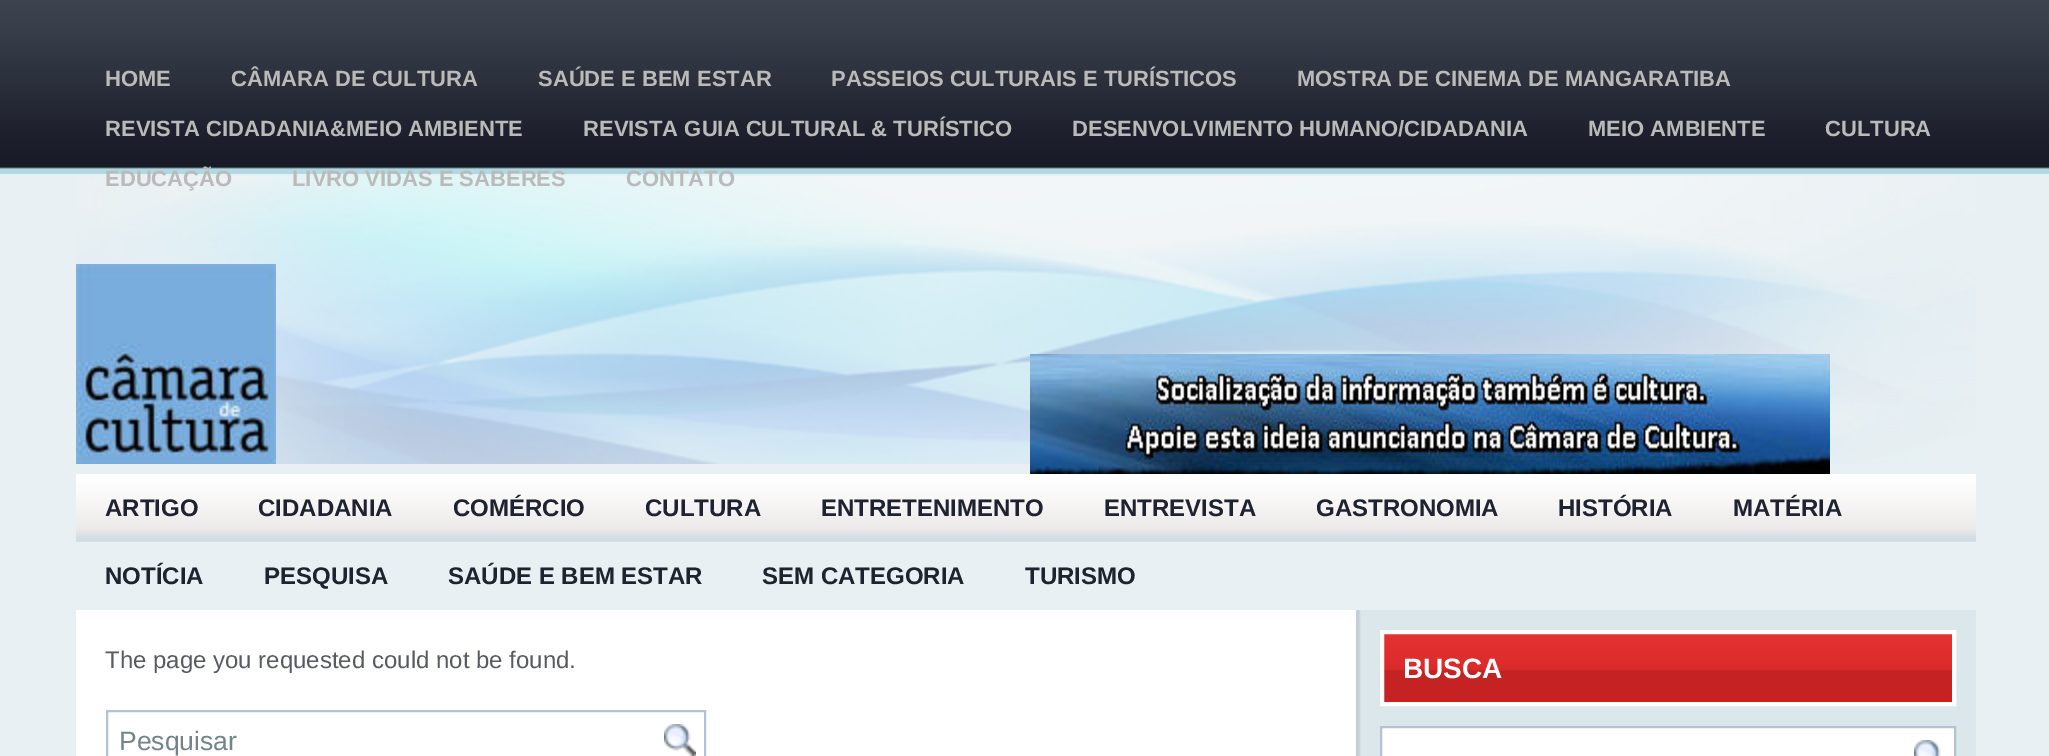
%!PS
<< /PageSize [2049 756] >> setpagedevice
/mt/moveto load def
/li/lineto load def
/cp/closepath load def
/fl/fill load def
/st/stroke load def
/gs/gsave load def
/gr/grestore load def
/lw/setlinewidth load def
/co { dup -16 bitshift 255 div exch dup -8 bitshift 255 and 255 div exch 255 and 255 div setrgbcolor } def
/fn { [ exch dup neg 0 0 3 -1 roll 0 0 ] selectfont } def
/tx { co fn moveto show } def
/bx { co rectfill } def
/im { 5 dict begin { /h /w /y /x /name } { exch def } forall
  gsave x y translate w h scale
  w h 8 [w 0 0 h 0 0] name (r) file false 3 colorimage grestore end } def
0 756 translate 1 -1 scale
4 setmiterlimit
0 0 2049 756 16#E9F0F3 bx
(media/1.raw) 0 0 2049 174 im
(media/2.raw) 76 176 1900 288 im
(media/3.raw) 76 264 200 200 im
(media/4.raw) 1030 354 800 120 im
(media/5.raw) 76 474 1900 68 im
76 610 1280 146 16#FFFFFF bx
(media/6.raw) 1356 610 620 146 im
16#B4C2D3 co
2 lw
107 711 598 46 rectstroke
(media/7.raw) 664 724 32 32 im
(media/8.raw) 1384 634 568 68 im
16#FFFFFF co
4 lw
1382 632 572 72 rectstroke
1381 727 mt 1955 727 li 1955 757 li 1381 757 li cp gs fl gr
16#B4C2D3 co
2 lw
st
(media/9.raw) 1914 740 27 16 im
(HOME) 105 86 /LiberationSans-Bold 22 16#BABABA tx
(CÂMARA DE CULTURA) 231 86 /LiberationSans-Bold 22 16#BABABA tx
(SAÚDE E BEM ESTAR) 538 86 /LiberationSans-Bold 22 16#BABABA tx
(PASSEIOS CULTURAIS E TURÍSTICOS) 831 86 /LiberationSans-Bold 22 16#BABABA tx
(MOSTRA DE CINEMA DE MANGARATIBA) 1297 86 /LiberationSans-Bold 22 16#BABABA tx
(REVISTA CIDADANIA&MEIO AMBIENTE) 105 136 /LiberationSans-Bold 22 16#BABABA tx
(REVISTA GUIA CULTURAL & TURÍSTICO) 583 136 /LiberationSans-Bold 22 16#BABABA tx
(DESENVOLVIMENTO HUMANO/CIDADANIA) 1072 136 /LiberationSans-Bold 22 16#BABABA tx
(MEIO AMBIENTE) 1588 136 /LiberationSans-Bold 22 16#BABABA tx
(CULTURA) 1825 136 /LiberationSans-Bold 22 16#BABABA tx
(EDUCAÇÃO) 105 186 /LiberationSans-Bold 22 16#BABABA tx
(LIVRO VIDAS E SABERES) 292 186 /LiberationSans-Bold 22 16#BABABA tx
(CONTATO) 626 186 /LiberationSans-Bold 22 16#BABABA tx
(ARTIGO) 105 516 /LiberationSans-Bold 24 16#1F232F tx
(CIDADANIA) 258 516 /LiberationSans-Bold 24 16#1F232F tx
(COMÉRCIO) 453 516 /LiberationSans-Bold 24 16#1F232F tx
(CULTURA) 645 516 /LiberationSans-Bold 24 16#1F232F tx
(ENTRETENIMENTO) 821 516 /LiberationSans-Bold 24 16#1F232F tx
(ENTREVISTA) 1104 516 /LiberationSans-Bold 24 16#1F232F tx
(GASTRONOMIA) 1316 516 /LiberationSans-Bold 24 16#1F232F tx
(HISTÓRIA) 1558 516 /LiberationSans-Bold 24 16#1F232F tx
(MATÉRIA) 1733 516 /LiberationSans-Bold 24 16#1F232F tx
(NOTÍCIA) 105 584 /LiberationSans-Bold 24 16#1F232F tx
(PESQUISA) 264 584 /LiberationSans-Bold 24 16#1F232F tx
(SAÚDE E BEM ESTAR) 448 584 /LiberationSans-Bold 24 16#1F232F tx
(SEM CATEGORIA) 762 584 /LiberationSans-Bold 24 16#1F232F tx
(TURISMO) 1025 584 /LiberationSans-Bold 24 16#1F232F tx
(The page you requested could not be found.) 105 668 /LiberationSans-Regular 24 16#585A61 tx
(Pesquisar) 119 750 /LiberationSans-Regular 26.5 16#72838A tx
(BUSCA) 1403 678 /LiberationSans-Bold 28 16#FFFFFF tx
showpage
